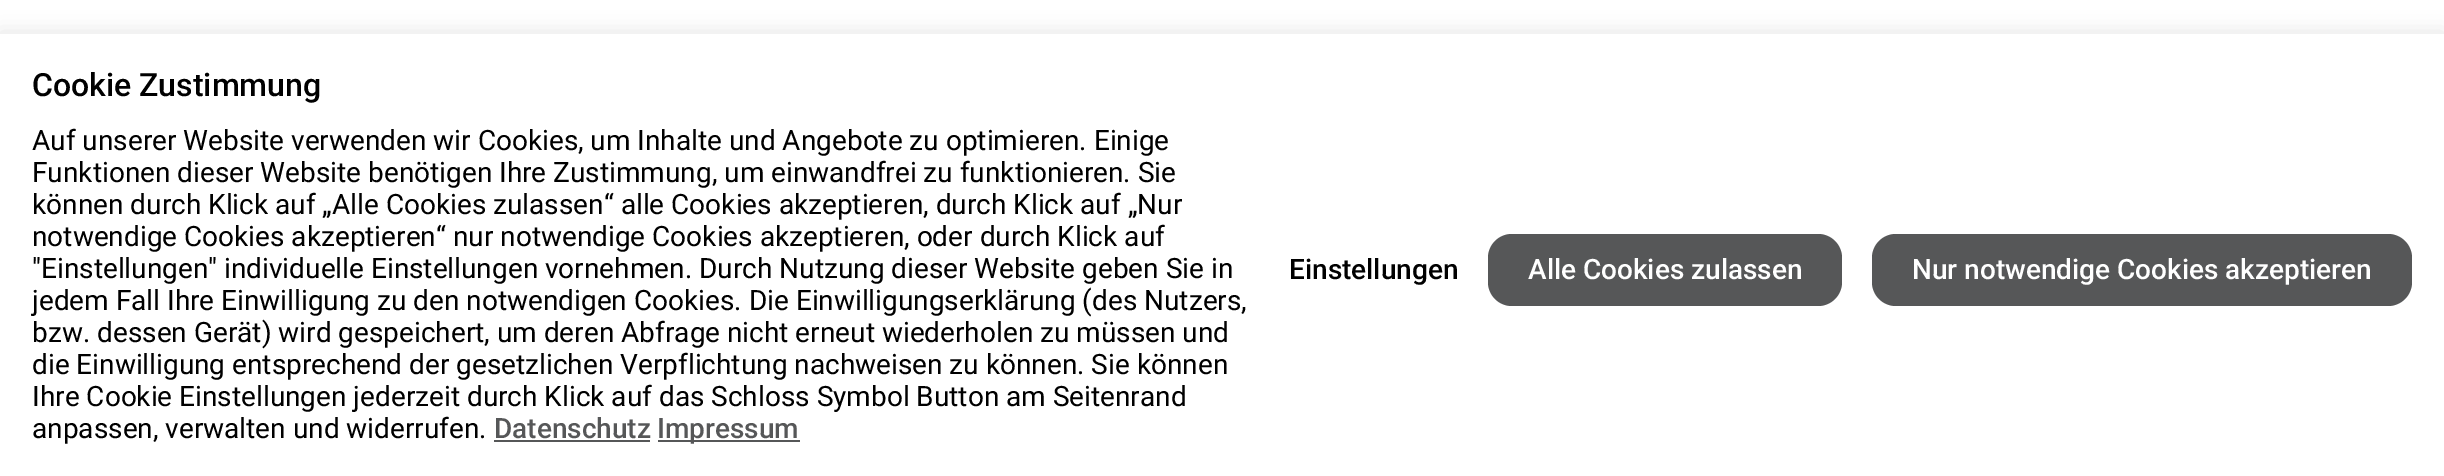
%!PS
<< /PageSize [2444 476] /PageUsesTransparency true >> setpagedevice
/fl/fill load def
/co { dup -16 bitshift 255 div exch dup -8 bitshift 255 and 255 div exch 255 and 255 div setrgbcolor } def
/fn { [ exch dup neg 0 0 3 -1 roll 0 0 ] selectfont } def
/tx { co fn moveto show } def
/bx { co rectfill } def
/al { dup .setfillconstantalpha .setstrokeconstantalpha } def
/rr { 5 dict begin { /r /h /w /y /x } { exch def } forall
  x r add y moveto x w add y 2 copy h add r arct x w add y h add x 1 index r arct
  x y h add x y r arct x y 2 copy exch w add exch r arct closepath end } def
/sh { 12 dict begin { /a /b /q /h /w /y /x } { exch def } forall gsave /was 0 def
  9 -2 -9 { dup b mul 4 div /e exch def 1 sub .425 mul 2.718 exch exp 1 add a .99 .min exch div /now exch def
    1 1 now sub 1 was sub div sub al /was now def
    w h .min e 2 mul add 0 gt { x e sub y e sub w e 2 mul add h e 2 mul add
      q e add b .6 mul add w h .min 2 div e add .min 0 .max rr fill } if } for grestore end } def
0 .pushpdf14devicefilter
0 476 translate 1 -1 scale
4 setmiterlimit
0 0 2444 476 16#FFFFFF bx
16#ACABAB co
0 32 2444 442 0 10 .3 sh
0 34 2444 442 16#FFFFFF bx
494 440 156 2 16#565758 bx
658 440 142 2 16#565758 bx
1488 234 354 72 24 rr fl
1872 234 540 72 24 rr fl
(Cookie Zustimmung) 32 96 /Roboto-Medium 32 16#000000 tx
(Auf unserer Website verwenden wir Cookies, um Inhalte und Angebote zu optimieren. Einige) 32 150 /Roboto-Regular 28 16#000000 tx
(Funktionen dieser Website benötigen Ihre Zustimmung, um einwandfrei zu funktionieren. Sie) 32 182 /Roboto-Regular 28 16#000000 tx
(können durch Klick auf „Alle Cookies zulassen“ alle Cookies akzeptieren, durch Klick auf „Nur) 32 214 /Roboto-Regular 28 16#000000 tx
(notwendige Cookies akzeptieren“ nur notwendige Cookies akzeptieren, oder durch Klick auf) 32 246 /Roboto-Regular 28 16#000000 tx
("Einstellungen" individuelle Einstellungen vornehmen. Durch Nutzung dieser Website geben Sie in) 32 278 /Roboto-Regular 28 16#000000 tx
(jedem Fall Ihre Einwilligung zu den notwendigen Cookies. Die Einwilligungserklärung \(des Nutzers,) 32 310 /Roboto-Regular 28 16#000000 tx
(bzw. dessen Gerät\) wird gespeichert, um deren Abfrage nicht erneut wiederholen zu müssen und) 32 342 /Roboto-Regular 28 16#000000 tx
(die Einwilligung entsprechend der gesetzlichen Verpflichtung nachweisen zu können. Sie können) 32 374 /Roboto-Regular 28 16#000000 tx
(Ihre Cookie Einstellungen jederzeit durch Klick auf das Schloss Symbol Button am Seitenrand) 32 406 /Roboto-Regular 28 16#000000 tx
(anpassen, verwalten und widerrufen.) 32 438 /Roboto-Regular 28 16#000000 tx
(Datenschutz) 494 438 /Roboto-Medium 28 16#565758 tx
(Impressum) 657 438 /Roboto-Medium 28 16#565758 tx
(Einstellungen) 1289 279 /Roboto-Medium 28 16#000000 tx
(Alle Cookies zulassen) 1528 279 /Roboto-Medium 28 16#FFFFFF tx
(Nur notwendige Cookies akzeptieren) 1912 279 /Roboto-Medium 28 16#FFFFFF tx
.poppdf14devicefilter showpage
